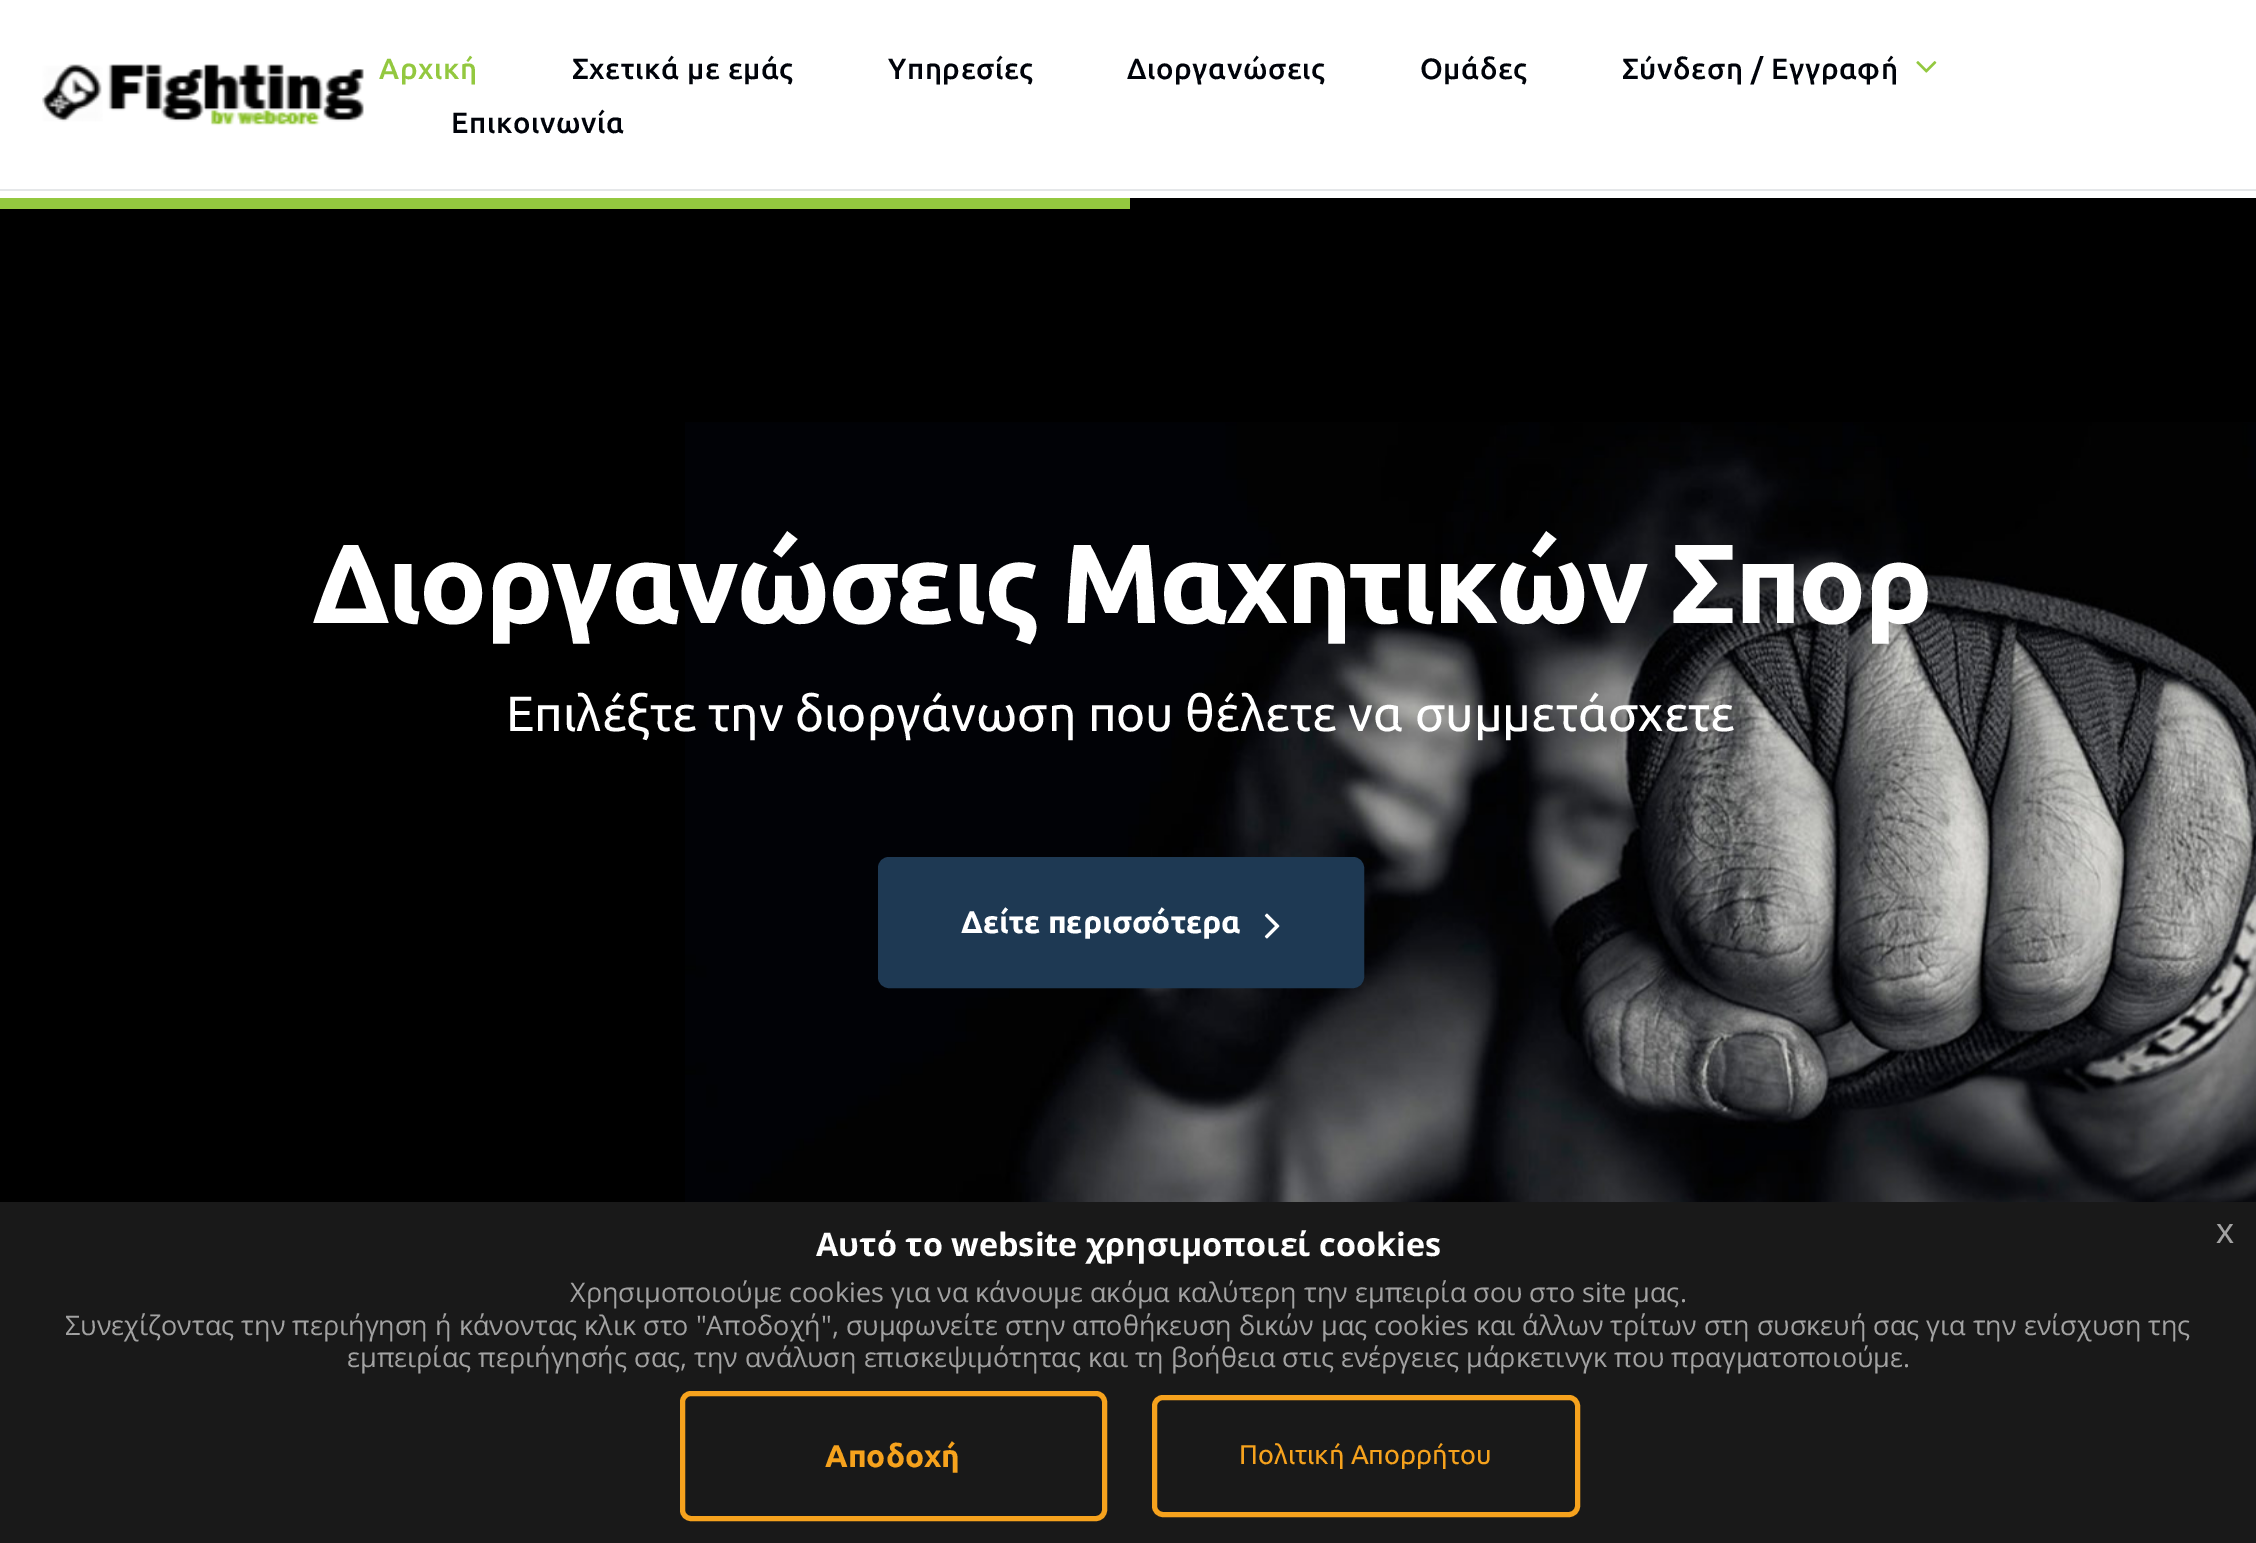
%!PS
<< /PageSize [2256 1543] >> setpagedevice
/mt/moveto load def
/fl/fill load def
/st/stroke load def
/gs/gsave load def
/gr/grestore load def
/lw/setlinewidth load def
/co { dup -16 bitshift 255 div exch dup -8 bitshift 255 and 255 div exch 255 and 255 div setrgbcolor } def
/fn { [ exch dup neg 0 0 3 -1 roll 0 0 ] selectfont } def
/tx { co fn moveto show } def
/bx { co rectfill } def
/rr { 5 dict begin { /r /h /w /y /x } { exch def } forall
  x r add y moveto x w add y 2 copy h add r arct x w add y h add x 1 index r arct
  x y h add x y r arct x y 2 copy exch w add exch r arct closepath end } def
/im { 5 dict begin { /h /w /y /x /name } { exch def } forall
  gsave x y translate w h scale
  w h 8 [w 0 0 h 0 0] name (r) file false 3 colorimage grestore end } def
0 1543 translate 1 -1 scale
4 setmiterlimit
0 0 2256 1543 16#FFFFFF bx
0 189 2256 2 16#E5E7E9 bx
(media/1.raw) 42 64 322 62 im
(media/2.raw) 1916 61 21 12 im
0 198 2256 1004 16#000000 bx
0 198 1130 11 16#93C83F bx
(media/3.raw) 685 422 1571 780 im
16#1E3953 co
880.5 859.5 481 126 8.5 rr gs fl gr
5 lw
st
(media/4.raw) 1264 913 16 26 im
0 1202 2256 341 16#191919 bx
16#F6A21D co
682.5 1393.5 422 125 8.5 rr st
1154.5 1397.5 423 117 8.5 rr st
/Ubuntu-Medium 29.25 fn
16#93C83F co
379 79 mt .6 0 (Αρχική) ashow
16#00030A co
572 79 mt .6 0 (Σχετικά με εμάς) ashow
888 79 mt .6 0 (Υπηρεσίες) ashow
1127 79 mt .6 0 (Διοργανώσεις) ashow
1420 79 mt .6 0 (Ομάδες) ashow
1622 79 mt .6 0 (Σύνδεση / Εγγραφή) ashow
451 133 mt .6 0 (Επικοινωνία) ashow
/Ubuntu-Bold 112.5 fn
16#FFFFFF co
312 623 mt -2.8 0 (Διοργανώσεις Μαχητικών Σπορ) ashow
(Επιλέξτε την διοργάνωση που θέλετε να συμμετάσχετε) 506 731 /Ubuntu-Regular 49.5 16#FFFFFF tx
(Δείτε περισσότερα) 961 933 /Ubuntu-Bold 31.5 16#FFFFFF tx
(Αυτό το website χρησιμοποιεί cookies) 816 1256 /OpenSans-Bold 32.4 16#FFFFFF tx
(x) 2216 1243 /LiberationSans-Regular 36 16#A2A2A2 tx
(Χρησιμοποιούμε cookies για να κάνουμε ακόμα καλύτερη την εμπειρία σου στο site μας.) 570 1302 /OpenSans-Regular 27 16#A2A2A2 tx
(Συνεχίζοντας την περιήγηση ή κάνοντας κλικ στο "Αποδοχή", συμφωνείτε στην αποθήκευση δικών μας cookies και άλλων τρίτων στη συσκευή σας για την ενίσχυση της) 65 1335 /OpenSans-Regular 27 16#A2A2A2 tx
(εμπειρίας περιήγησής σας, την ανάλυση επισκεψιμότητας και τη βοήθεια στις ενέργειες μάρκετινγκ που πραγματοποιούμε.) 347 1367 /OpenSans-Regular 27 16#A2A2A2 tx
(Αποδοχή) 825 1467 /Ubuntu-Bold 31.5 16#F6A21D tx
(Πολιτική Απορρήτου) 1239 1464 /Ubuntu-Regular 27 16#F6A21D tx
showpage
